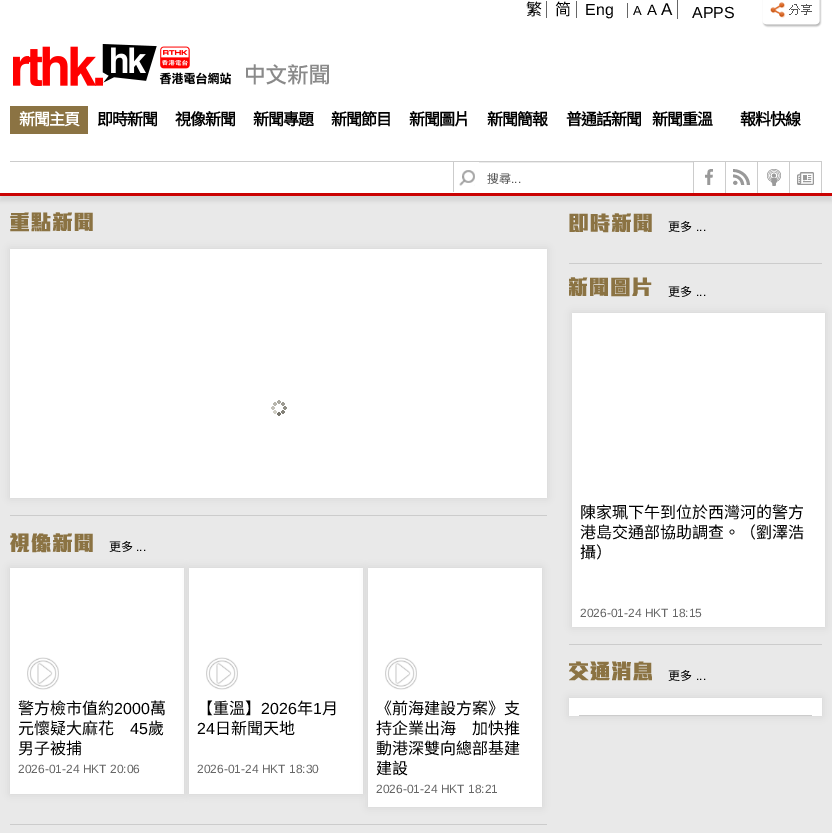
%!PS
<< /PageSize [832 833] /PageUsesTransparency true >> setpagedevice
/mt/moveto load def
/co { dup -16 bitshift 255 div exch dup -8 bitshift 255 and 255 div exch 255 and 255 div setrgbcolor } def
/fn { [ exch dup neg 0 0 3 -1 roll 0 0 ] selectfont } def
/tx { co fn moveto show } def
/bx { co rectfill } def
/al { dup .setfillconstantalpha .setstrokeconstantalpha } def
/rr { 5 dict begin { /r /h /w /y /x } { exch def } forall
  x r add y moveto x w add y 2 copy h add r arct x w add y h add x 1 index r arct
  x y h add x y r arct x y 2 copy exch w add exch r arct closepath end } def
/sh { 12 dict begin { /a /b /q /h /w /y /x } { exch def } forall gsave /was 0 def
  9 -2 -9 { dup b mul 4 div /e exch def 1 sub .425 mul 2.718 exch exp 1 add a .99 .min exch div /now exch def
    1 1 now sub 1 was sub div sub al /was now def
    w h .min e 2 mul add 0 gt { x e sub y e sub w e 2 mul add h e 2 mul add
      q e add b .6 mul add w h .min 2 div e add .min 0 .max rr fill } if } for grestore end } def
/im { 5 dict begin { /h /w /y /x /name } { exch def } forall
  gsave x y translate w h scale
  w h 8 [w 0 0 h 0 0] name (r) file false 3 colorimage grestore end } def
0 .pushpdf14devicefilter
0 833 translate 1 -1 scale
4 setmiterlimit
0 0 832 833 16#E9E9E9 bx
0 0 832 33 16#FFFFFF bx
546 1 1 17 16#666666 bx
576 1 1 17 16#666666 bx
627 3 1 15 16#666666 bx
677 0 1 19 16#666666 bx
(media/1.raw) 762 0 60 28 im
16#D5D5D5 co
0 38 832 163 0 2 1 sh
0 33 832 160 16#FFFFFF bx
0 193 832 3 16#CA0202 bx
(media/2.raw) 13 44 316 42 im
10 106 78 28 16#8B7343 bx
10 161 812 1 16#CCCCCC bx
453 162 1 30 16#CCCCCC bx
(media/3.raw) 459 170 16 16 im
479 162 214 1 16#ECECEC bx
693 162 1 31 16#CCCCCC bx
(media/4.raw) 705 169 8 16 im
725 162 1 31 16#CCCCCC bx
(media/5.raw) 733 169 17 16 im
757 162 1 31 16#CCCCCC bx
(media/6.raw) 767 169 14 17 im
789 162 1 31 16#CCCCCC bx
(media/7.raw) 797 172 17 13 im
821 162 1 31 16#CCCCCC bx
10 515 537 1 16#CCCCCC bx
(media/8.raw) 10 212 83 20 im
16#D5D5D5 co
10 249 537 249 0 4 1 sh
10 249 537 249 16#FFFFFF bx
(media/9.raw) 271 400 16 16 im
(media/10.raw) 10 533 83 20 im
10 824 537 1 16#CCCCCC bx
16#D5D5D5 co
10 568 174 226 0 4 1 sh
10 568 174 226 16#FFFFFF bx
(media/11.raw) 27 657 32 33 im
16#D5D5D5 co
189 568 174 226 0 4 1 sh
189 568 174 226 16#FFFFFF bx
(media/11.raw) 206 657 32 33 im
16#D5D5D5 co
368 568 174 239 0 4 1 sh
368 568 174 239 16#FFFFFF bx
(media/11.raw) 385 657 32 33 im
(media/12.raw) 569 213 83 20 im
569 263 253 1 16#CCCCCC bx
(media/13.raw) 569 277 83 20 im
16#D5D5D5 co
572 313 253 314 0 4 1 sh
572 313 253 314 16#FFFFFF bx
569 644 253 1 16#CCCCCC bx
(media/14.raw) 569 661 83 20 im
16#D5D5D5 co
569 698 253 18 0 4 1 sh
569 698 253 18 16#FFFFFF bx
579 715 233 1 16#CCCCCC bx
(繁) 526 15 /NotoSansCJKTC-Regular 16 16#000000 tx
(简) 555 15 /NotoSansCJKTC-Regular 16 16#000000 tx
(Eng) 585 15 /LiberationSans-Regular 16 16#000000 tx
(A) 633 15 /LiberationSans-Regular 13 16#000000 tx
(A) 647 15 /LiberationSans-Regular 15 16#000000 tx
(A) 661 15 /LiberationSans-Regular 17 16#000000 tx
(APPS) 692 18 /LiberationSans-Regular 16 16#000000 tx
/NotoSansCJKTC-Bold 16 fn
16#FFFFFF co
19 125 mt -1 0 (新聞主頁) ashow
16#000000 co
97 125 mt -1 0 (即時新聞) ashow
175 125 mt -1 0 (視像新聞) ashow
253 125 mt -1 0 (新聞專題) ashow
331 125 mt -1 0 (新聞節目) ashow
409 125 mt -1 0 (新聞圖片) ashow
487 125 mt -1 0 (新聞簡報) ashow
566 125 mt -1 0 (普通話新聞) ashow
652 125 mt -1 0 (新聞重溫) ashow
740 125 mt -1 0 (報料快線) ashow
(搜尋) 487 183 /NotoSansCJKTC-Regular 12 16#555555 tx
(...) 511 183 /LiberationSans-Regular 12 16#555555 tx
(更多) 109 551 /NotoSansCJKTC-Regular 12 16#000000 tx
(...) 136 551 /LiberationSans-Regular 12 16#000000 tx
(警方檢市值約) 18 714 /NotoSansCJKTC-Regular 16 16#000000 tx
(2000) 114 714 /LiberationSans-Regular 16 16#000000 tx
(萬) 150 714 /NotoSansCJKTC-Regular 16 16#000000 tx
(元懷疑大麻花) 18 734 /NotoSansCJKTC-Regular 16 16#000000 tx
(45) 130 734 /LiberationSans-Regular 16 16#000000 tx
(歲) 148 734 /NotoSansCJKTC-Regular 16 16#000000 tx
(男子被捕) 18 754 /NotoSansCJKTC-Regular 16 16#000000 tx
(2026-01-24 HKT 20:06) 18 773 /LiberationSans-Regular 12 16#666666 tx
(【重溫】) 197 714 /NotoSansCJKTC-Regular 16 16#000000 tx
(2026) 261 714 /LiberationSans-Regular 16 16#000000 tx
(年) 297 714 /NotoSansCJKTC-Regular 16 16#000000 tx
(1) 313 714 /LiberationSans-Regular 16 16#000000 tx
(月) 322 714 /NotoSansCJKTC-Regular 16 16#000000 tx
(24) 197 734 /LiberationSans-Regular 16 16#000000 tx
(日新聞天地) 215 734 /NotoSansCJKTC-Regular 16 16#000000 tx
(2026-01-24 HKT 18:30) 197 773 /LiberationSans-Regular 12 16#666666 tx
(《前海建設方案》支) 376 714 /NotoSansCJKTC-Regular 16 16#000000 tx
(持企業出海　加快推) 376 734 /NotoSansCJKTC-Regular 16 16#000000 tx
(動港深雙向總部基建) 376 754 /NotoSansCJKTC-Regular 16 16#000000 tx
(建設) 376 774 /NotoSansCJKTC-Regular 16 16#000000 tx
(2026-01-24 HKT 18:21) 376 793 /LiberationSans-Regular 12 16#666666 tx
(更多) 668 231 /NotoSansCJKTC-Regular 12 16#000000 tx
(...) 696 231 /LiberationSans-Regular 12 16#000000 tx
(更多) 668 296 /NotoSansCJKTC-Regular 12 16#000000 tx
(...) 696 296 /LiberationSans-Regular 12 16#000000 tx
(陳家珮下午到位於西灣河的警方) 580 518 /NotoSansCJKTC-Regular 16 16#000000 tx
(港島交通部協助調查。（劉澤浩) 580 538 /NotoSansCJKTC-Regular 16 16#000000 tx
(攝）) 580 558 /NotoSansCJKTC-Regular 16 16#000000 tx
(2026-01-24 HKT 18:15) 580 617 /LiberationSans-Regular 12 16#666666 tx
(更多) 668 680 /NotoSansCJKTC-Regular 12 16#000000 tx
(...) 696 680 /LiberationSans-Regular 12 16#000000 tx
.poppdf14devicefilter showpage
